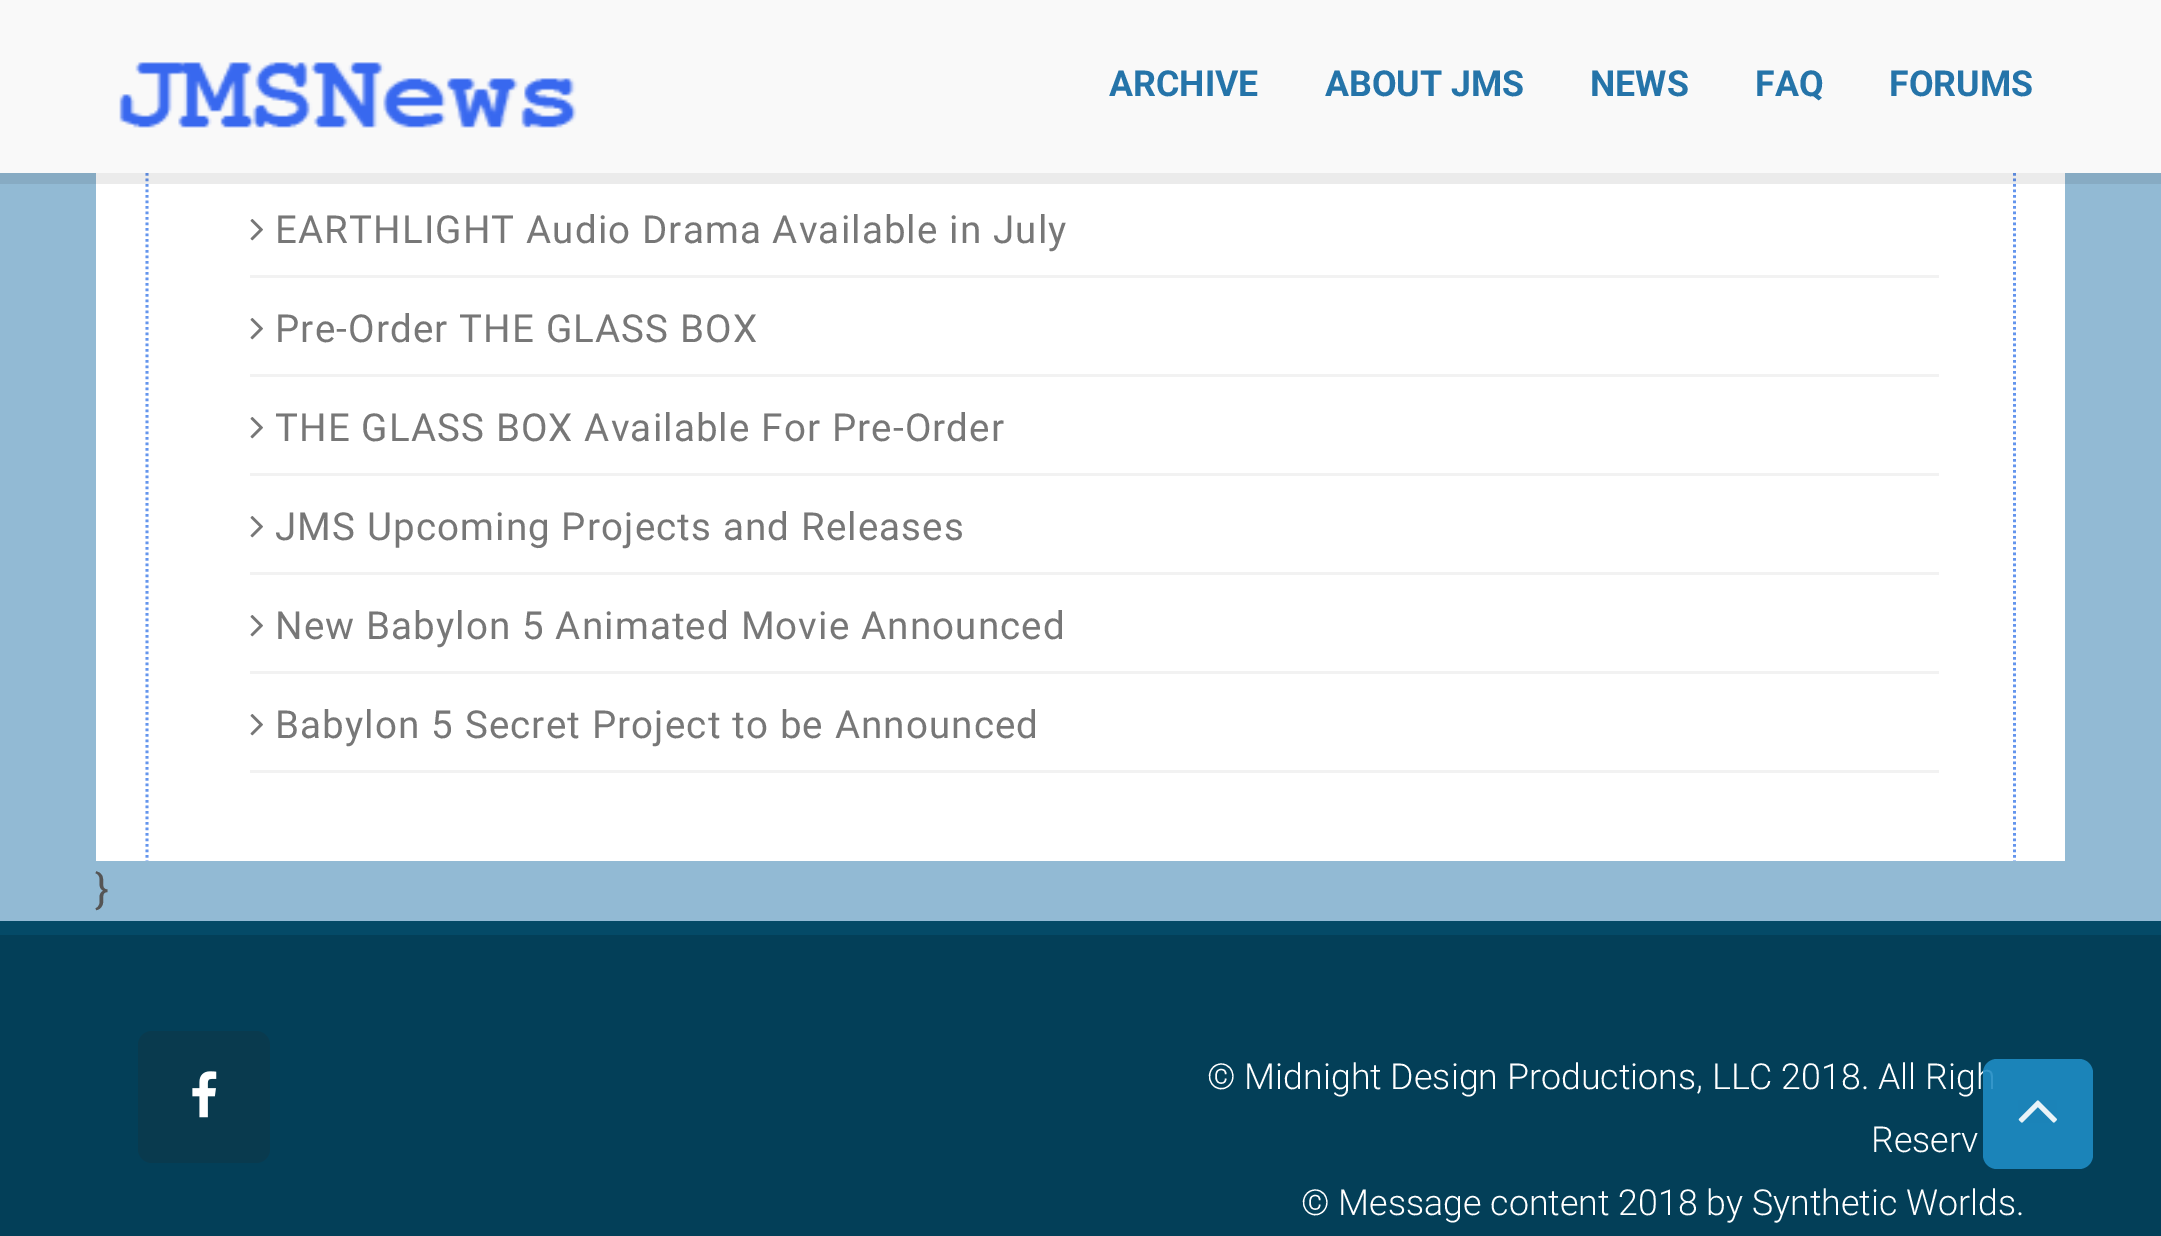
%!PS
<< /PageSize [2161 1236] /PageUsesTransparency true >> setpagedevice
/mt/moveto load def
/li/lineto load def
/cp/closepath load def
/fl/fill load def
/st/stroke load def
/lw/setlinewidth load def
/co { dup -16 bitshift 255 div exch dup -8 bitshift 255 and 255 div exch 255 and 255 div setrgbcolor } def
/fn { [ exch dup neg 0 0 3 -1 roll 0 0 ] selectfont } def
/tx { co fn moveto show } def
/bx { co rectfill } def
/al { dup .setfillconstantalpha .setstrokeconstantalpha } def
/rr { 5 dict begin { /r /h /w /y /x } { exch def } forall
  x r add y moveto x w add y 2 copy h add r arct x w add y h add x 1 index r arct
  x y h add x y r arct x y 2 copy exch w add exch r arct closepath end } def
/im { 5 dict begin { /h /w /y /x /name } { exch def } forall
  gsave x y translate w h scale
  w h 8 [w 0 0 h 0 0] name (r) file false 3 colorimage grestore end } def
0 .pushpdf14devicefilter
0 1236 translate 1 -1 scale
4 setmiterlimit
0 0 2161 1236 16#033F58 bx
0 173 2161 748 16#92BAD4 bx
96 173 1969 688 16#FFFFFF bx
16#6495ED co
2.8 lw
[2.75 2.75] 0 setdash
2014.5 -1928 mt 2014.5 861 li st
147 -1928 mt 147 861 li st
0.08 al
16#000000 co
0 173 mt 0 184 li 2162 184 li 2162 11 li 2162 173 li cp fl
1 al
0 0 2161 173 16#F9F9F9 bx
(media/1.raw) 119 62 458 66 im
250 275 1689 3 16#F2F2F2 bx
(media/2.raw) 250 219 13 22 im
250 374 1689 3 16#F2F2F2 bx
(media/2.raw) 250 318 13 22 im
250 473 1689 3 16#F2F2F2 bx
(media/2.raw) 250 417 13 22 im
250 572 1689 3 16#F2F2F2 bx
(media/2.raw) 250 516 13 22 im
250 671 1689 3 16#F2F2F2 bx
(media/2.raw) 250 615 13 22 im
250 770 1689 3 16#F2F2F2 bx
(media/2.raw) 250 714 13 22 im
0 921 2161 14 16#044A67 bx
16#093A4E co
138 1031 132 132 14 rr fl
(media/3.raw) 192 1071 25 47 im
(ARCHIVE) 1109 96 /Roboto-Bold 35.75 16#2574A9 tx
(ABOUT JMS) 1325 96 /Roboto-Bold 35.75 16#2574A9 tx
(NEWS) 1590 96 /Roboto-Bold 35.75 16#2574A9 tx
(FAQ) 1755 96 /Roboto-Bold 35.75 16#2574A9 tx
(FORUMS) 1889 96 /Roboto-Bold 35.75 16#2574A9 tx
/Roboto-Regular 38.5 fn
16#777777 co
275 243 mt 1.15 0 (EARTHLIGHT Audio Drama Available in July) ashow
275 342 mt 1.15 0 (Pre-Order THE GLASS BOX) ashow
275 441 mt 1.15 0 (THE GLASS BOX Available For Pre-Order) ashow
275 540 mt 1.15 0 (JMS Upcoming Projects and Releases) ashow
275 639 mt 1.15 0 (New Babylon 5 Animated Movie Announced) ashow
275 738 mt 1.15 0 (Babylon 5 Secret Project to be Announced) ashow
(}) 95 903 /Roboto-Regular 41 16#555555 tx
(© Midnight Design Productions, LLC 2018. All Righ) 1207 1089 /Roboto-Light 35.75 16#FFFFFF tx
(Reserv) 1871 1152 /Roboto-Light 35.75 16#FFFFFF tx
(© Message content 2018 by Synthetic Worlds.) 1301 1215 /Roboto-Light 35.75 16#FFFFFF tx
0.9 al
16#1E8BC3 co
1983 1059 110 110 14 rr fl
1 al
(media/4.raw) 2018 1100 39 23 im
.poppdf14devicefilter showpage
